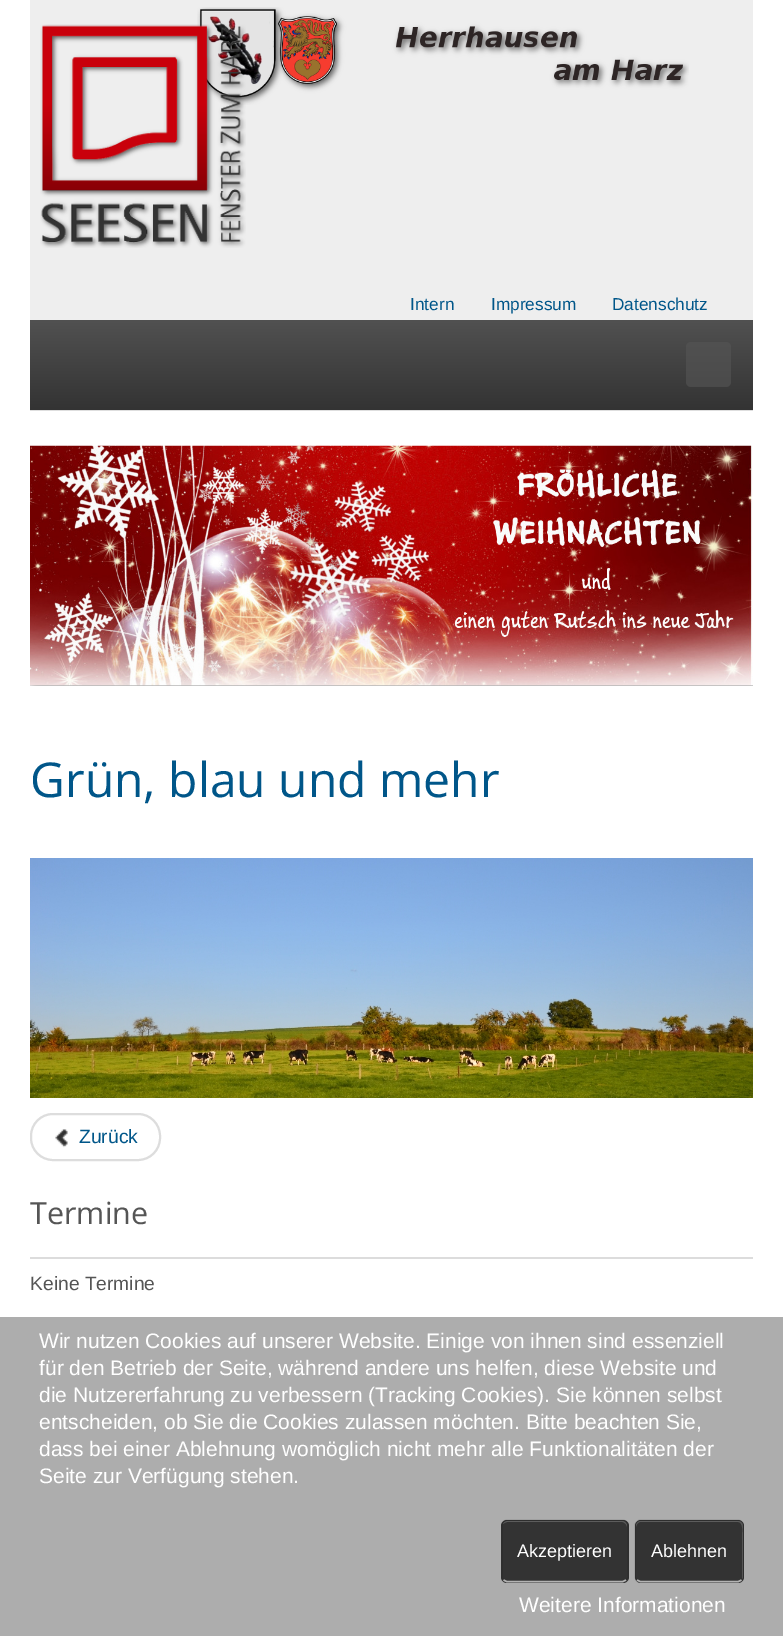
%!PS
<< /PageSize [783 1636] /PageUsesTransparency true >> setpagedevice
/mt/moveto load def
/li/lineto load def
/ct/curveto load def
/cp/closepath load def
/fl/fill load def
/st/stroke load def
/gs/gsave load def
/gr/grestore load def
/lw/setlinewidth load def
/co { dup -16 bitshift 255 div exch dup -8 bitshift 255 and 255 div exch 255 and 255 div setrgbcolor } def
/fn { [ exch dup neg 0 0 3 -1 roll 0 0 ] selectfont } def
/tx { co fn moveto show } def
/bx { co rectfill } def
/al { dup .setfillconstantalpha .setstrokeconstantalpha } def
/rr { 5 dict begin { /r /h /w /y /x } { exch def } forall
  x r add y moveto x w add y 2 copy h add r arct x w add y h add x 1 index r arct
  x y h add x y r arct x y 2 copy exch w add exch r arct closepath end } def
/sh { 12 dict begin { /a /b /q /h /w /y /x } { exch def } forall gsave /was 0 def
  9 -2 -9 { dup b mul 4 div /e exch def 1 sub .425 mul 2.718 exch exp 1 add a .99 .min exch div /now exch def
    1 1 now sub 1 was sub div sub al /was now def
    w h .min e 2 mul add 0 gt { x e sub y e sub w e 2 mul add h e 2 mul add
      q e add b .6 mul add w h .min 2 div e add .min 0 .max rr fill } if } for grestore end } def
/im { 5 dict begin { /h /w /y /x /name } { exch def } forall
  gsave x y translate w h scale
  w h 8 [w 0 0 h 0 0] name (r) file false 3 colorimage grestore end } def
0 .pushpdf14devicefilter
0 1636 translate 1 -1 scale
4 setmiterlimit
0 0 783 1636 16#FFFFFF bx
30 0 723 320 16#EEEEEE bx
30 410 723 1 16#DEDEDE bx
(media/1.raw) 197 7 492 98 im
(media/2.raw) 40 24 206 224 im
gs 30 320 mt 753 320 li 753 410 li 30 410 li cp clip newpath
<< /ShadingType 2 /ColorSpace /DeviceRGB /Coords [392 319 392 410] /Extend [true true] /Function << /FunctionType 2 /Domain [0 1] /C0 [.318 .318 .318] /C1 [.2 .2 .2] /N 1 >> >> shfill gr
0.6 al
16#555555 co
686 342 45 45 5 rr fl
gs
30 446 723 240 rectclip
1 al
16#666666 co
30 446 729 246 0 4 1 sh
gr
1 al
(media/3.raw) 30 445 723 241 im
(media/4.raw) 30 858 723 240 im
16#DDDDDD co
2 lw
31 1114 129 46 22 rr st
(media/5.raw) 55 1129 13 19 im
30 1257 723 2 16#DCDCDC bx
0 1317 783 319 16#ADADAD bx
16#333333 co
501 1520 128 63 6 rr fl
16#5C5C5C co
507 1522 mt 622 1522 li 625 1522 627 1525 627 1527 ct 627 1526 li 627 1523 625 1521 622 1521 ct 508 1521 li 506 1521 504 1522 503 1524 ct 504 1523 506 1522 507 1522 ct cp fl
16#B3B3B3 co
1.5 lw
626 1580 mt 623 1581.5 li 506.5 1581.5 li 503.5 1580 li st
0.1 al
16#000000 co
503.5 1580 mt 502.5 1579 502 1578 502 1576.5 ct 502 1525.5 li 502 1524 502.5 1523 503.5 1522 ct 504.5 1521 505.5 1520 507 1520 ct 622.5 1520 li 624 1520 625 1521 626 1522 ct 627 1523 628 1524 628 1525.5 ct 628 1576.5 li 628 1578 627 1579 626 1580 ct st
1 al
16#333333 co
635 1520 109 63 6 rr fl
16#5C5C5C co
640 1522 mt 738 1522 li 744 1522 742 1534 742 1536 ct 742 1579 li 743 1578 743 1577 743 1576 ct 743 1526 li 743 1523 741 1521 738 1521 ct 641 1521 li 638 1521 636 1523 636 1526 ct 636 1527 li 636 1525 638 1522 640 1522 ct cp fl
16#B3B3B3 co
741.5 1580 mt 738.5 1581.5 li 640 1581.5 li 637 1580 li st
0.1 al
16#000000 co
637 1580 mt 636 1579 635 1578 635 1576.5 ct 635 1525.5 li 635 1524 636 1523 637 1522 ct 638 1521 639 1520 640.5 1520 ct 738 1520 li 739.5 1520 740.5 1521 741.5 1522 ct 742.5 1523 743 1524 743 1525.5 ct 743 1576.5 li 743 1578 742.5 1579 741.5 1580 ct st
1 al
(Intern) 410 310 /LiberationSans-Regular 17.25 16#005689 tx
(Impressum) 491 310 /LiberationSans-Regular 17.25 16#005689 tx
(Datenschutz) 612 310 /LiberationSans-Regular 17.25 16#005689 tx
(Grün, blau und mehr) 30 797 /OpenSans-Regular 48 16#005689 tx
(Zurück) 79 1143 /LiberationSans-Regular 19.25 16#005689 tx
(Termine) 30 1224 /OpenSans-Regular 30.5 16#555555 tx
(Keine Termine) 30 1290 /LiberationSans-Regular 19.25 16#555555 tx
(Wir nutzen Cookies auf unserer Website. Einige von ihnen sind essenziell) 39 1348 /LiberationSans-Regular 21 16#FFFFFF tx
(für den Betrieb der Seite, während andere uns helfen, diese Website und) 39 1375 /LiberationSans-Regular 21 16#FFFFFF tx
(die Nutzererfahrung zu verbessern \(Tracking Cookies\). Sie können selbst) 39 1402 /LiberationSans-Regular 21 16#FFFFFF tx
(entscheiden, ob Sie die Cookies zulassen möchten. Bitte beachten Sie,) 39 1429 /LiberationSans-Regular 21 16#FFFFFF tx
(dass bei einer Ablehnung womöglich nicht mehr alle Funktionalitäten der) 39 1456 /LiberationSans-Regular 21 16#FFFFFF tx
(Seite zur Verfügung stehen.) 39 1483 /LiberationSans-Regular 21 16#FFFFFF tx
(Akzeptieren) 517 1557 /LiberationSans-Regular 18 16#FFFFFF tx
(Ablehnen) 651 1557 /LiberationSans-Regular 18 16#FFFFFF tx
(Weitere Informationen) 519 1612 /LiberationSans-Regular 21 16#FFFFFF tx
.poppdf14devicefilter showpage
